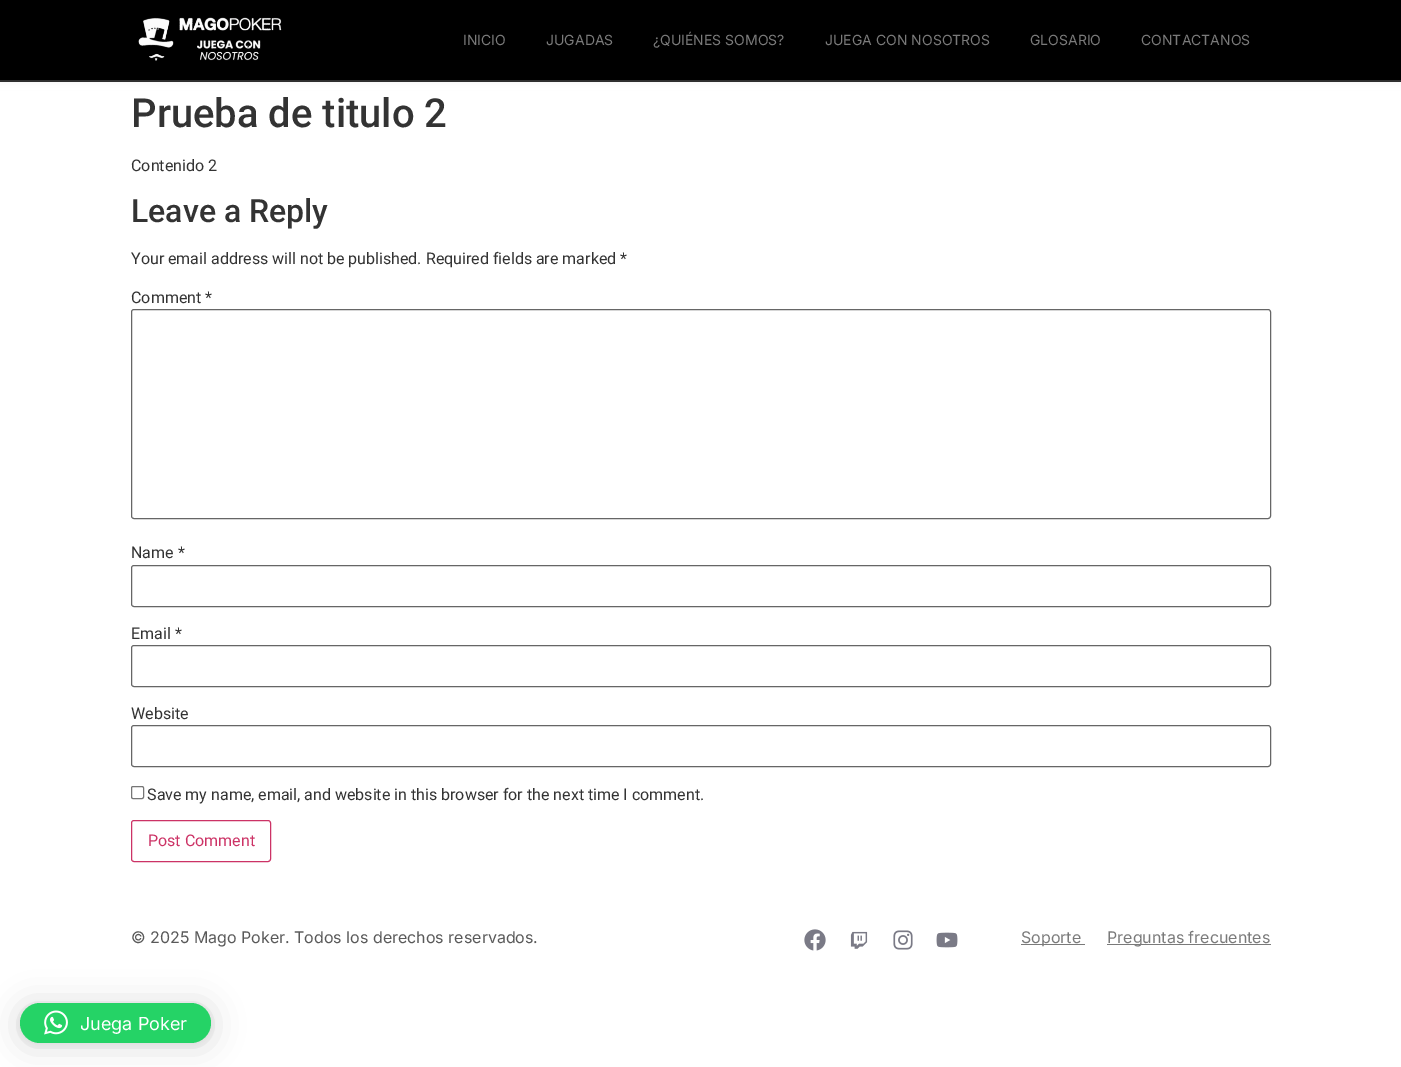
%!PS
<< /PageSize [1401 1067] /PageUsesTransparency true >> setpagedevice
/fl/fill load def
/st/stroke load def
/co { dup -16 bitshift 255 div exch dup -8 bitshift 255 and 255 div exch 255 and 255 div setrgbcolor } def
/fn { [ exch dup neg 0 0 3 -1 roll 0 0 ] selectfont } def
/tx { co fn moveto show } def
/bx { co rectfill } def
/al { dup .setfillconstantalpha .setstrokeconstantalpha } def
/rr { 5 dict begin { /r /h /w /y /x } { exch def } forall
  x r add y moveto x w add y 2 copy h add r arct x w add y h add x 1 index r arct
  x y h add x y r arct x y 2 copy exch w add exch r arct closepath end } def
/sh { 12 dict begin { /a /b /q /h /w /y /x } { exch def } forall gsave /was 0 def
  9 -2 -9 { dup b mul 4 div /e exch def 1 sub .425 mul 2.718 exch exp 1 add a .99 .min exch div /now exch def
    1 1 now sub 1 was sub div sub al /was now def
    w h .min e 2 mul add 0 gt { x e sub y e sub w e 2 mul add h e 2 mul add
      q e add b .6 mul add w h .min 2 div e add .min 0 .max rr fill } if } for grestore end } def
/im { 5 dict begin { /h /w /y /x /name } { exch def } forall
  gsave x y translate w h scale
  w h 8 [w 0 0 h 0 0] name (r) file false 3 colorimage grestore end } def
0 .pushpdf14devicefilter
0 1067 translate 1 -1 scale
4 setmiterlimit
0 0 1401 1067 16#FFFFFF bx
16#000000 co
0 0 1401 82 0 5 .06 sh
0 0 1401 80 16#000000 bx
0 80 1401 2 16#2E2E2E bx
(media/1.raw) 138 17 144 44 im
16#666666 co
131.5 309.5 1139 209 2.5 rr st
131.5 565.5 1139 41 2.5 rr st
131.5 645.5 1139 41 2.5 rr st
131.5 725.5 1139 41 2.5 rr st
16#767676 co
131.5 786.5 12 12 1.5 rr st
16#CC3366 co
131.5 820.5 139 41 2.5 rr st
(media/2.raw) 804 929 22 22 im
(media/3.raw) 850 931 18 18 im
(media/4.raw) 893 930 20 20 im
(media/5.raw) 936 932 22 16 im
1021 944 64 1 16#7A7A7A bx
1107 944 164 1 16#7A7A7A bx
16#000000 co
20 1005 191 40 20 16 .16 sh
20 1004 191 40 20 3 .06 sh
16#25D366 co
20 1003 191 40 20 rr fl
(media/6.raw) 44 1010 24 25 im
(INICIO) 463 45 /Inter-Regular 14 16#7A7A7A tx
(JUGADAS) 546 45 /Inter-Regular 14 16#7A7A7A tx
(¿QUIÉNES SOMOS?) 653 45 /Inter-Regular 14 16#7A7A7A tx
(JUEGA CON NOSOTROS) 825 45 /Inter-Regular 14 16#7A7A7A tx
(GLOSARIO) 1030 45 /Inter-Regular 14 16#7A7A7A tx
(CONTACTANOS) 1141 45 /Inter-Regular 14 16#7A7A7A tx
(Prueba de titulo 2) 131 127 /Roboto-Medium 40 16#333333 tx
(Contenido 2) 131 171 /Roboto-Regular 16 16#333333 tx
(Leave a Reply) 131 222 /Roboto-Medium 32 16#333333 tx
(Your email address will not be published. Required fields are marked *) 131 264 /Roboto-Regular 16 16#333333 tx
(Comment *) 131 303 /Roboto-Regular 16 16#333333 tx
(Name *) 131 558 /Roboto-Regular 16 16#333333 tx
(Email *) 131 639 /Roboto-Regular 16 16#333333 tx
(Website) 131 719 /Roboto-Regular 16 16#333333 tx
(Save my name, email, and website in this browser for the next time I comment.) 147 800 /Roboto-Regular 16 16#333333 tx
(Post Comment) 148 846 /Roboto-Regular 16 16#CC3366 tx
(© 2025 Mago Poker. Todos los derechos reservados.) 131 943 /Inter-Regular 16 16#595959 tx
(Soporte) 1021 943 /Inter-Regular 16 16#7A7A7A tx
(Preguntas frecuentes) 1107 943 /Inter-Regular 16 16#7A7A7A tx
(Juega Poker) 80 1030 /Inter-Regular 18 16#FFFFFF tx
.poppdf14devicefilter showpage
